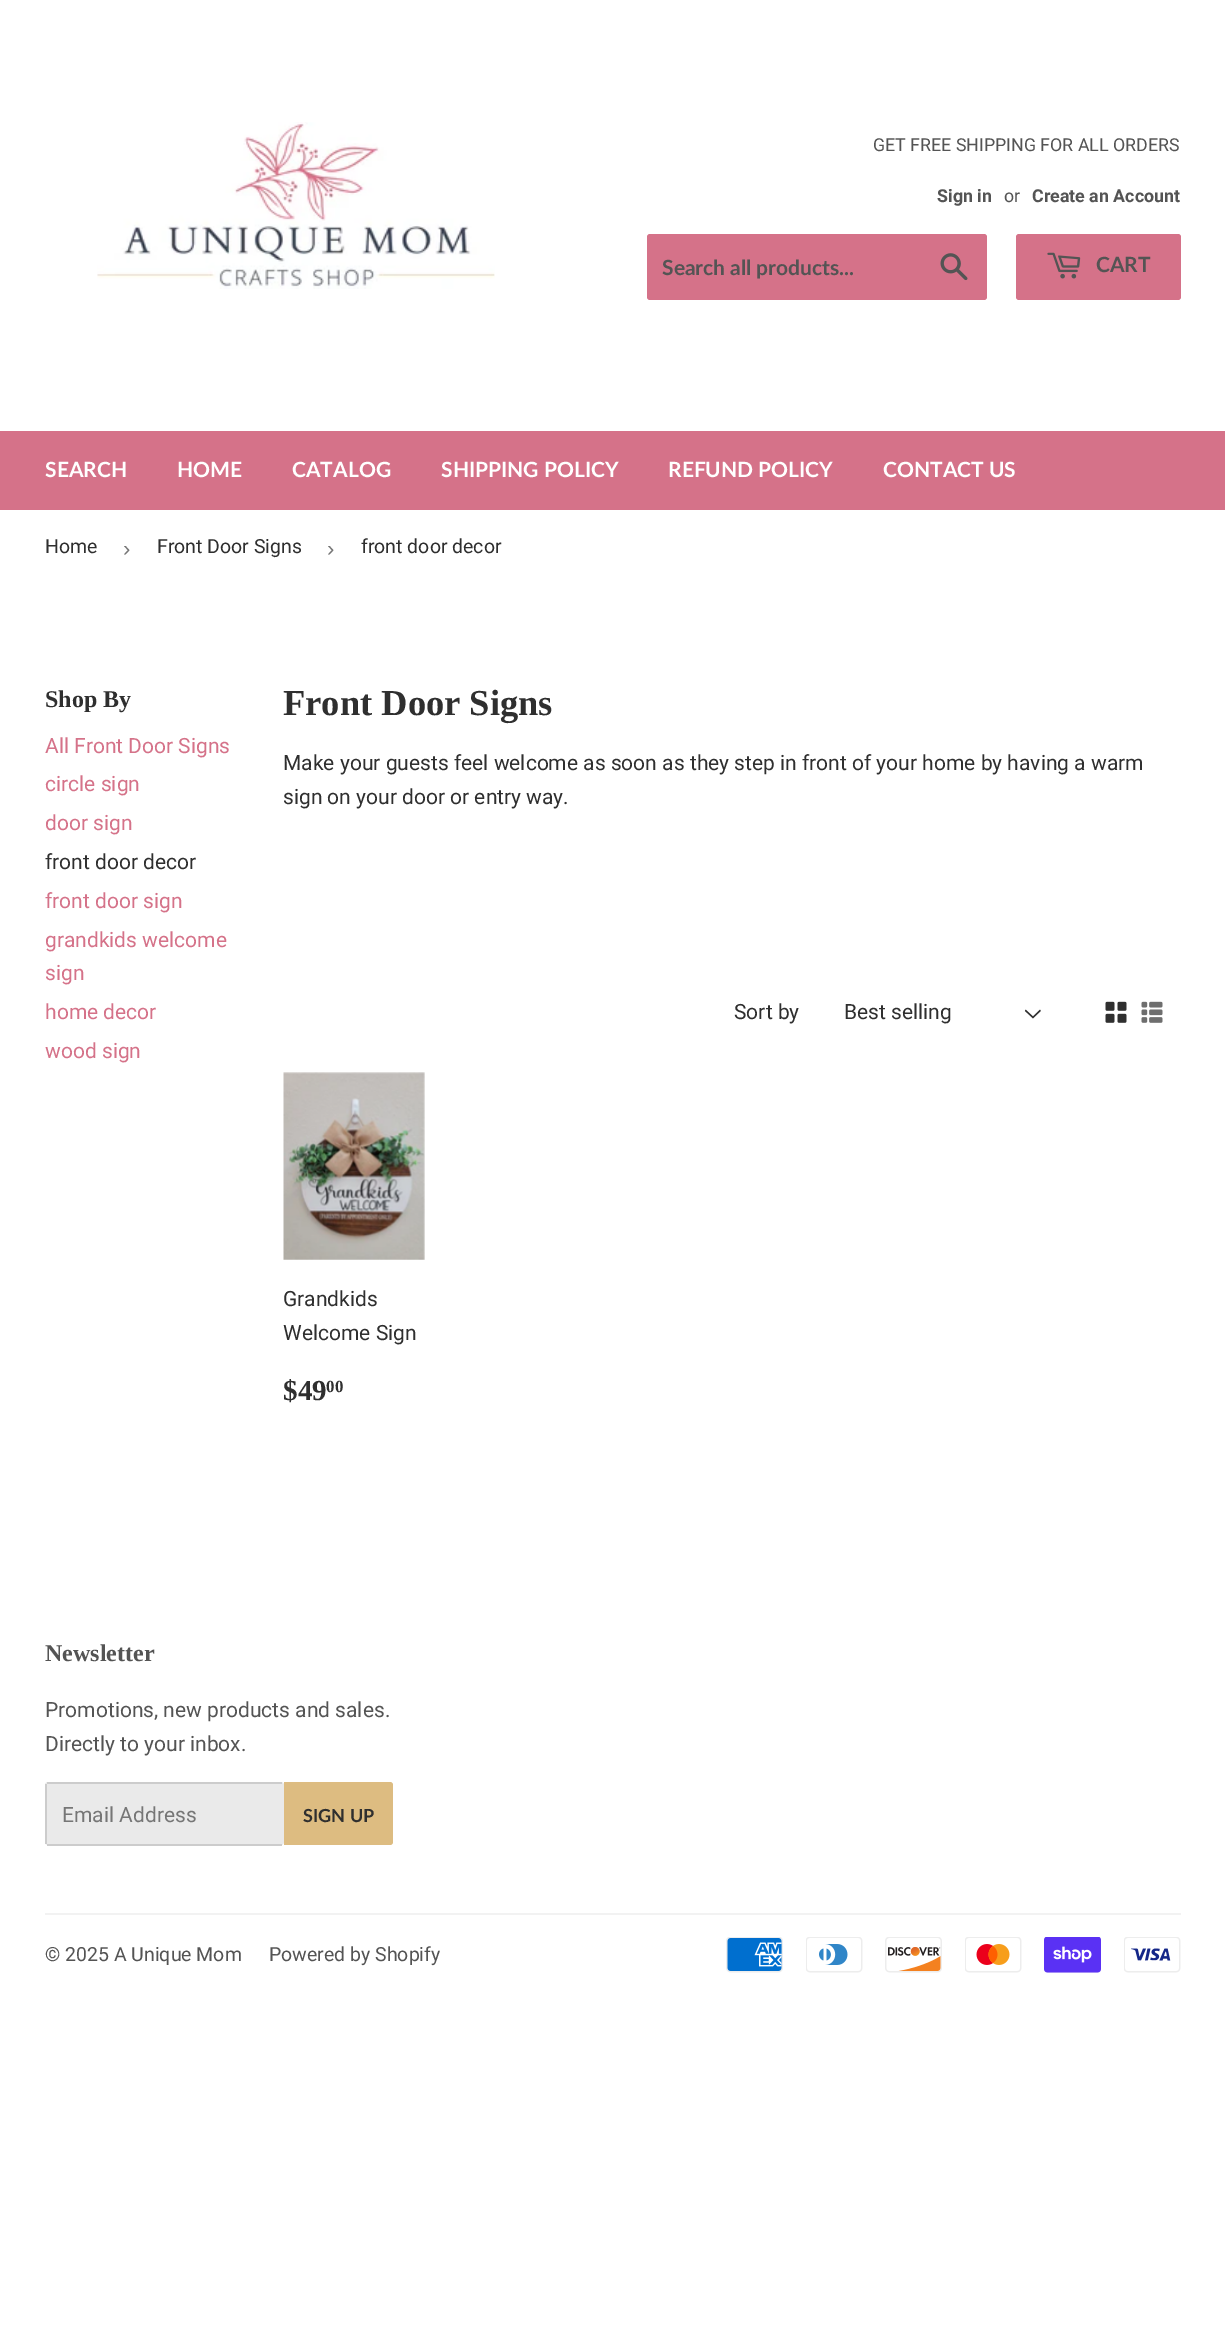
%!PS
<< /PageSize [1225 2338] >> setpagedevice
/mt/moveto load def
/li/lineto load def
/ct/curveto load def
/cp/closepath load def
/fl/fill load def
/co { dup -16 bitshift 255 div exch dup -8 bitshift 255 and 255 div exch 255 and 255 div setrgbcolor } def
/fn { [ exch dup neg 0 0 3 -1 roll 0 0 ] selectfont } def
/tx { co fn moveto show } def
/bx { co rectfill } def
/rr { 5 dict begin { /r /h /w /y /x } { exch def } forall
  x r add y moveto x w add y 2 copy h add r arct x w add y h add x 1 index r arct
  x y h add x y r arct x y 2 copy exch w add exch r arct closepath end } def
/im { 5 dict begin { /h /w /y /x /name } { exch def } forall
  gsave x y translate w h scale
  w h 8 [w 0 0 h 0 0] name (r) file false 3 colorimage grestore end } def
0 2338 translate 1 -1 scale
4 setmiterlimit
0 0 1225 2338 16#FFFFFF bx
(media/1.raw) 97 122 398 167 im
16#D57289 co
647 234 340 66 3 rr fl
(media/2.raw) 940 253 28 28 im
1016 234 165 66 3 rr fl
(media/3.raw) 1047 252 34 27 im
0 431 1225 79 16#D57289 bx
(media/4.raw) 1024 1009 17 10 im
(media/5.raw) 1105 1001 22 22 im
(media/6.raw) 1141 1001 22 22 im
(media/7.raw) 283 1072 142 188 im
16#EAEAEA co
45 1782 239 63 3 rr fl
47 1782 235 2 16#CCCCCC bx
47 1844 235 2 16#CCCCCC bx
45 1784 2 60 16#CCCCCC bx
16#DDBC81 co
284 1782 mt 390 1782 li 391.5 1782 393 1783.5 393 1785 ct 393 1842 li 393 1843.5 391.5 1845 390 1845 ct 284 1845 li cp fl
45 1913 1136 2 16#F2F2F2 bx
(media/8.raw) 726 1937 57 36 im
(media/9.raw) 806 1937 57 36 im
(media/10.raw) 885 1937 57 36 im
(media/11.raw) 965 1937 57 36 im
(media/12.raw) 1044 1937 57 36 im
(media/13.raw) 1124 1937 57 36 im
(GET FREE SHIPPING FOR ALL ORDERS) 873 151 /Roboto-Regular 17.8 16#545454 tx
(Sign in) 937 202 /Roboto-Bold 17.8 16#545454 tx
(or) 1004 202 /Roboto-Regular 17.8 16#545454 tx
(Create an Account) 1032 202 /Roboto-Bold 17.8 16#545454 tx
(Search all products...) 662 275 /Lato-Bold 21 16#545454 tx
(CART) 1096 272 /Lato-Bold 21 16#545454 tx
(SEARCH) 45 477 /Lato-Bold 21 16#FFFFFF tx
(HOME) 177 477 /Lato-Bold 21 16#FFFFFF tx
(CATALOG) 292 477 /Lato-Bold 21 16#FFFFFF tx
(SHIPPING POLICY) 441 477 /Lato-Bold 21 16#FFFFFF tx
(REFUND POLICY) 668 477 /Lato-Bold 21 16#FFFFFF tx
(CONTACT US) 883 477 /Lato-Bold 21 16#FFFFFF tx
(Home) 45 553 /Roboto-Regular 19.5 16#2F2F2F tx
(›) 123 556 /LiberationSans-Regular 22 16#767676 tx
(Front Door Signs) 157 553 /Roboto-Regular 19.5 16#2F2F2F tx
(›) 327 556 /LiberationSans-Regular 22 16#767676 tx
(front door decor) 361 553 /Roboto-Regular 19.5 16#2F2F2F tx
(Shop By) 45 707 /LiberationSerif-Bold 24 16#2F2F2F tx
(All Front Door Signs) 45 753 /Roboto-Regular 21 16#D57289 tx
(circle sign) 45 791 /Roboto-Regular 21 16#D57289 tx
(door sign) 45 830 /Roboto-Regular 21 16#D57289 tx
(front door decor) 45 869 /Roboto-Regular 21 16#2F2F2F tx
(front door sign) 45 908 /Roboto-Regular 21 16#D57289 tx
(grandkids welcome) 45 947 /Roboto-Regular 21 16#D57289 tx
(sign) 45 980 /Roboto-Regular 21 16#D57289 tx
(home decor) 45 1019 /Roboto-Regular 21 16#D57289 tx
(wood sign) 45 1058 /Roboto-Regular 21 16#D57289 tx
(Front Door Signs) 283 715 /LiberationSerif-Bold 36.5 16#2F2F2F tx
(Make your guests feel welcome as soon as they step in front of your home by having a warm) 283 770 /Roboto-Regular 21 16#2F2F2F tx
(sign on your door or entry way.) 283 804 /Roboto-Regular 21 16#2F2F2F tx
(Sort by) 734 1019 /Roboto-Regular 21 16#2F2F2F tx
(Best selling) 844 1019 /Roboto-Regular 21 16#2F2F2F tx
(Grandkids) 283 1306 /Roboto-Regular 21 16#2F2F2F tx
(Welcome Sign) 283 1340 /Roboto-Regular 21 16#2F2F2F tx
($49) 283 1400 /LiberationSerif-Bold 29 16#2F2F2F tx
(00) 326 1392 /LiberationSerif-Bold 17 16#2F2F2F tx
(Newsletter) 45 1661 /LiberationSerif-Bold 24 16#545454 tx
(Promotions, new products and sales.) 45 1717 /Roboto-Regular 21 16#545454 tx
(Directly to your inbox.) 45 1751 /Roboto-Regular 21 16#545454 tx
(Email Address) 62 1822 /Roboto-Regular 21 16#767676 tx
(SIGN UP) 303 1822 /Lato-Bold 18 16#2F2F2F tx
(© 2025 A Unique Mom) 45 1961 /Roboto-Regular 19.5 16#545454 tx
(Powered by Shopify) 269 1961 /Roboto-Regular 19.5 16#545454 tx
showpage
